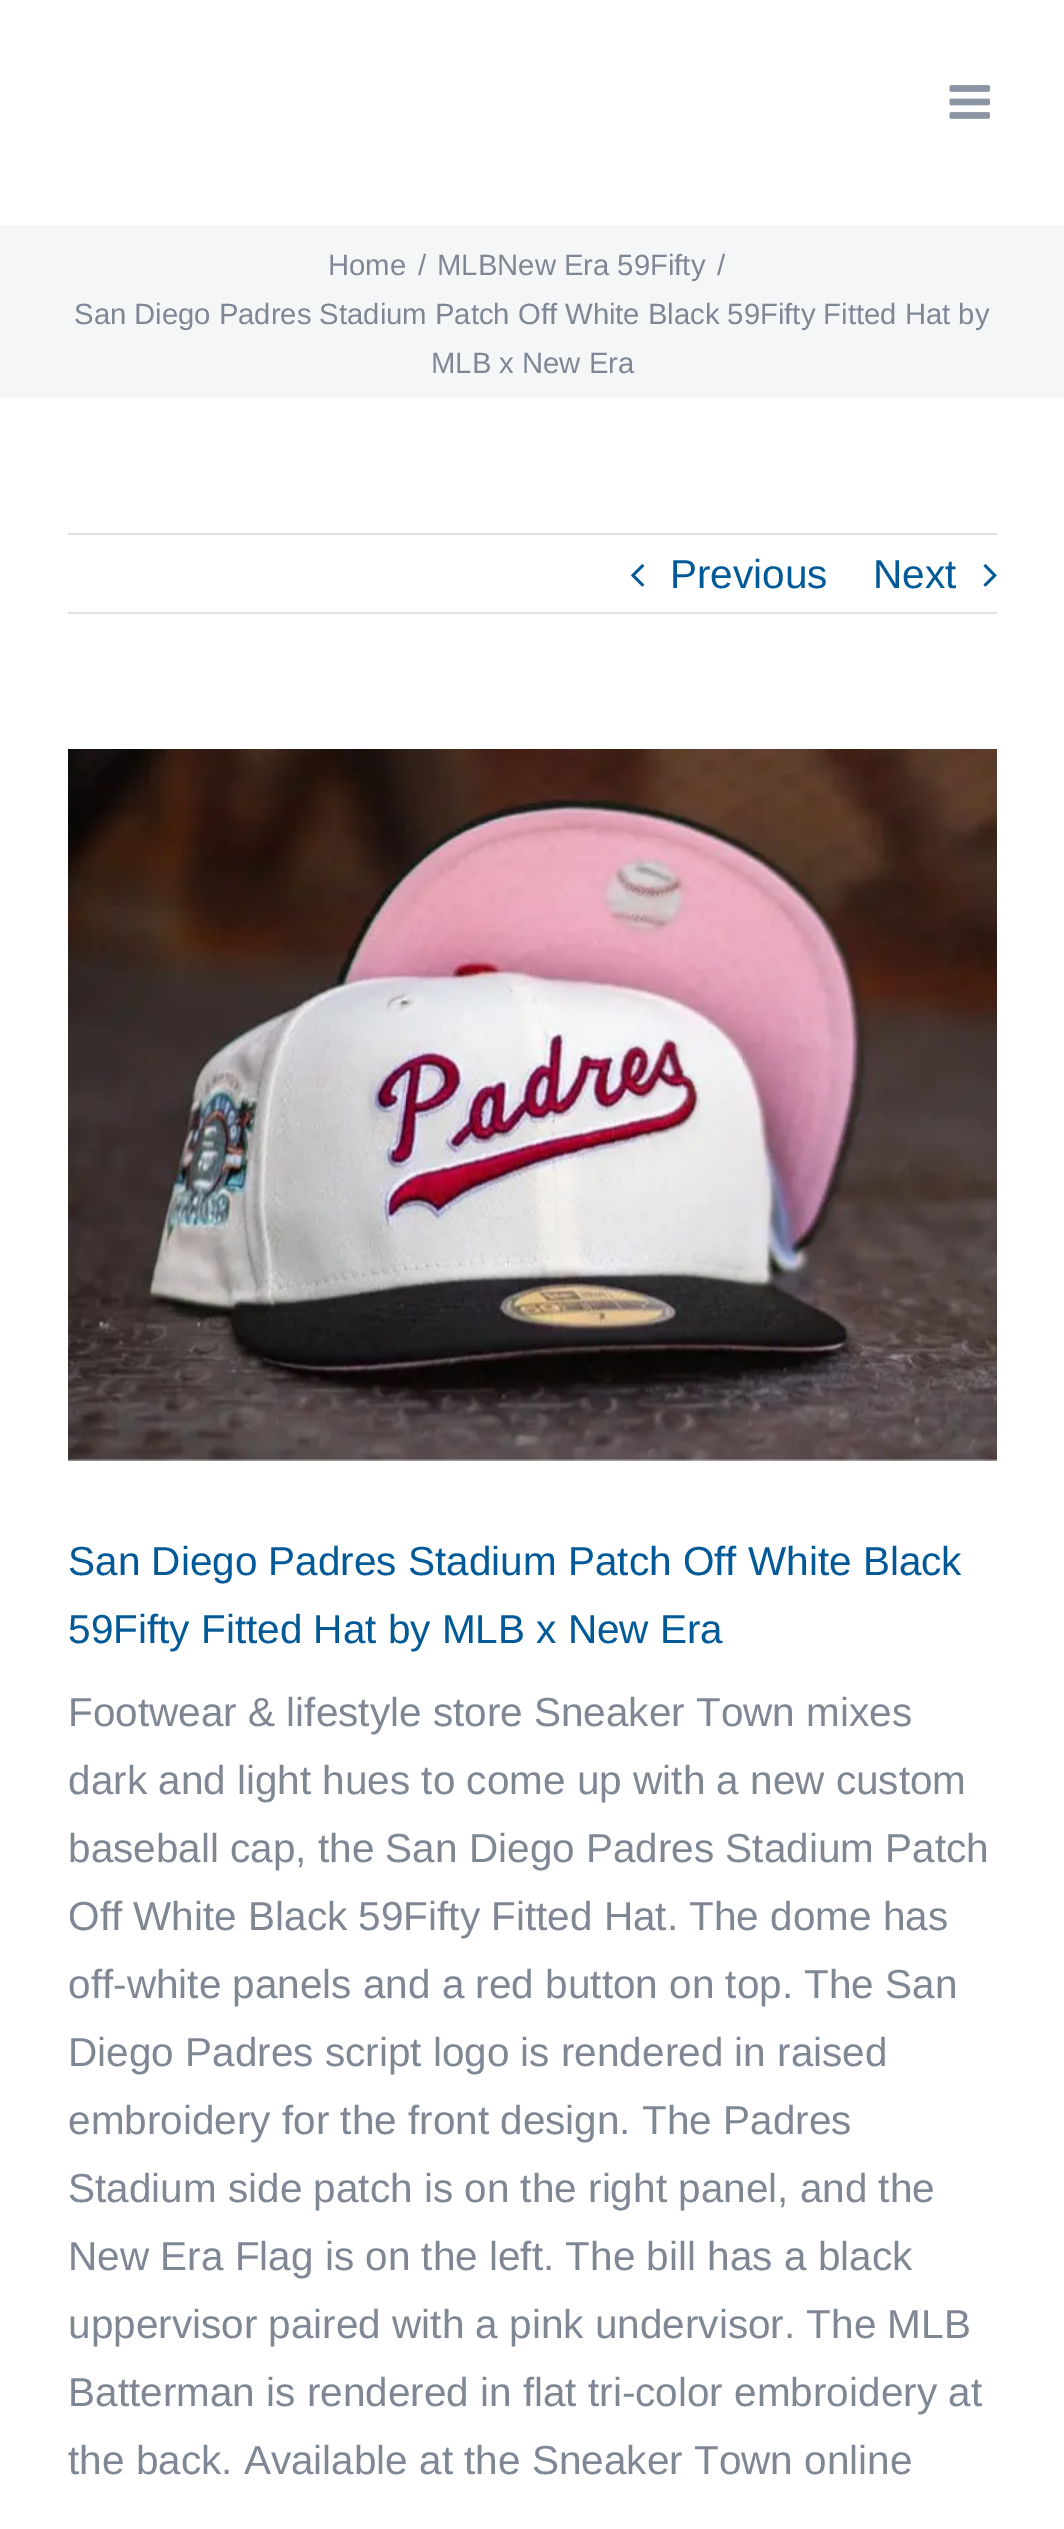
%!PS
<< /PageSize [1064 2529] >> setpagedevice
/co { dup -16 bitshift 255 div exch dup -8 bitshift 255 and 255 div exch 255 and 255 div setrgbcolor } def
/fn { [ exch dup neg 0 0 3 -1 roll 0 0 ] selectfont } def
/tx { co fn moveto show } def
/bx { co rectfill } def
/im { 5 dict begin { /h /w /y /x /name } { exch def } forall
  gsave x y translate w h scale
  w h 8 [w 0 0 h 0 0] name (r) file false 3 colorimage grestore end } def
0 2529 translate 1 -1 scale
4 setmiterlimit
0 0 1064 2529 16#FFFFFF bx
(media/1.raw) 949 85 41 34 im
0 225 1064 173 16#F4F6F8 bx
68 533 929 2 16#DBE2EA bx
68 612 929 2 16#DBE2EA bx
(media/2.raw) 631 564 14 23 im
(media/3.raw) 983 564 14 23 im
(media/4.raw) 68 749 929 712 im
(Home) 328 275 /LiberationSans-Regular 29.25 16#7F8795 tx
(/) 418 275 /LiberationSans-Regular 29.25 16#7F8795 tx
(MLBNew Era 59Fifty) 437 275 /LiberationSans-Regular 29.25 16#7F8795 tx
(/) 717 275 /LiberationSans-Regular 29.25 16#7F8795 tx
(San Diego Padres Stadium Patch Off White Black 59Fifty Fitted Hat by) 74 324 /LiberationSans-Regular 29.25 16#7F8795 tx
(MLB x New Era) 431 373 /LiberationSans-Regular 29.25 16#7F8795 tx
(Previous) 670 588 /LiberationSans-Regular 40.5 16#015997 tx
(Next) 873 588 /LiberationSans-Regular 40.5 16#015997 tx
(San Diego Padres Stadium Patch Off White Black) 68 1575 /LiberationSans-Regular 40.5 16#015997 tx
(59Fifty Fitted Hat by MLB x New Era) 68 1643 /LiberationSans-Regular 40.5 16#015997 tx
(Footwear & lifestyle store Sneaker Town mixes) 68 1726 /LiberationSans-Regular 40.5 16#7F8795 tx
(dark and light hues to come up with a new custom) 68 1794 /LiberationSans-Regular 40.5 16#7F8795 tx
(baseball cap, the San Diego Padres Stadium Patch) 68 1862 /LiberationSans-Regular 40.5 16#7F8795 tx
(Off White Black 59Fifty Fitted Hat. The dome has) 68 1930 /LiberationSans-Regular 40.5 16#7F8795 tx
(off-white panels and a red button on top. The San) 68 1998 /LiberationSans-Regular 40.5 16#7F8795 tx
(Diego Padres script logo is rendered in raised) 68 2066 /LiberationSans-Regular 40.5 16#7F8795 tx
(embroidery for the front design. The Padres) 68 2134 /LiberationSans-Regular 40.5 16#7F8795 tx
(Stadium side patch is on the right panel, and the) 68 2202 /LiberationSans-Regular 40.5 16#7F8795 tx
(New Era Flag is on the left. The bill has a black) 68 2270 /LiberationSans-Regular 40.5 16#7F8795 tx
(uppervisor paired with a pink undervisor. The MLB) 68 2338 /LiberationSans-Regular 40.5 16#7F8795 tx
(Batterman is rendered in flat tri-color embroidery at) 68 2406 /LiberationSans-Regular 40.5 16#7F8795 tx
(the back. Available at the Sneaker Town online) 68 2474 /LiberationSans-Regular 40.5 16#7F8795 tx
showpage
